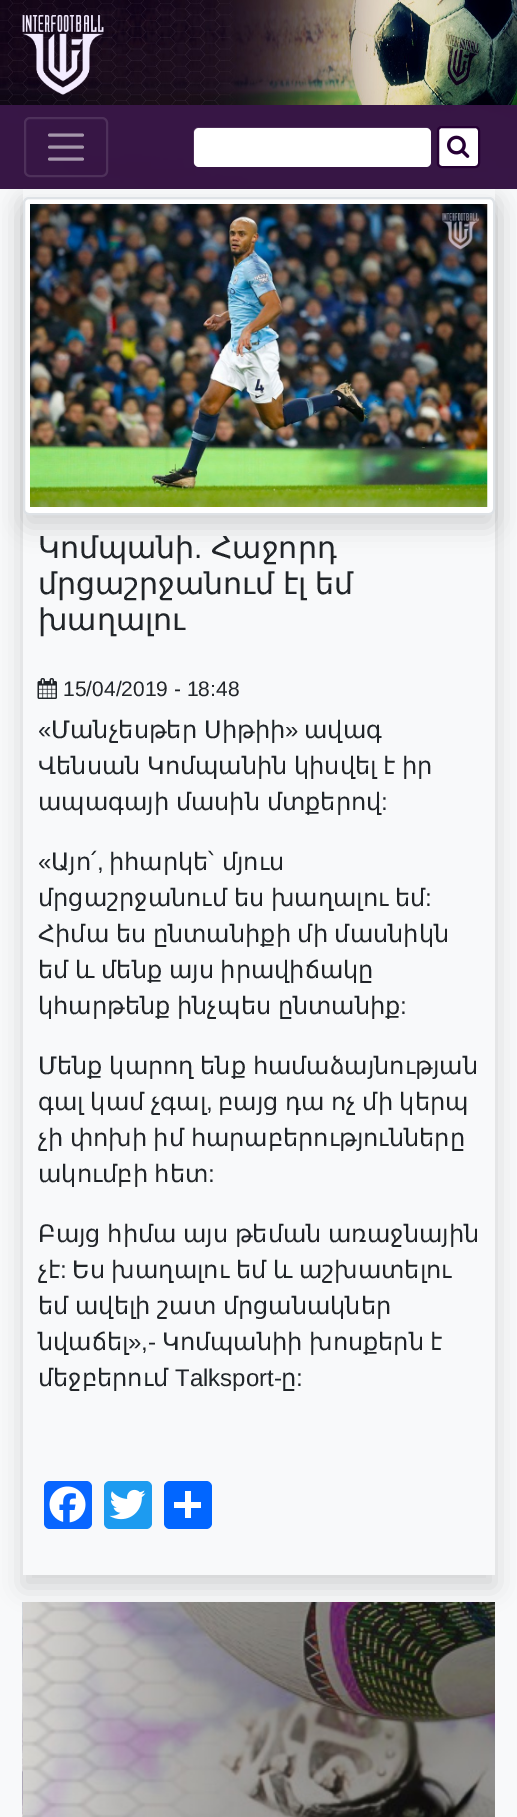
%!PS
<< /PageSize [517 1817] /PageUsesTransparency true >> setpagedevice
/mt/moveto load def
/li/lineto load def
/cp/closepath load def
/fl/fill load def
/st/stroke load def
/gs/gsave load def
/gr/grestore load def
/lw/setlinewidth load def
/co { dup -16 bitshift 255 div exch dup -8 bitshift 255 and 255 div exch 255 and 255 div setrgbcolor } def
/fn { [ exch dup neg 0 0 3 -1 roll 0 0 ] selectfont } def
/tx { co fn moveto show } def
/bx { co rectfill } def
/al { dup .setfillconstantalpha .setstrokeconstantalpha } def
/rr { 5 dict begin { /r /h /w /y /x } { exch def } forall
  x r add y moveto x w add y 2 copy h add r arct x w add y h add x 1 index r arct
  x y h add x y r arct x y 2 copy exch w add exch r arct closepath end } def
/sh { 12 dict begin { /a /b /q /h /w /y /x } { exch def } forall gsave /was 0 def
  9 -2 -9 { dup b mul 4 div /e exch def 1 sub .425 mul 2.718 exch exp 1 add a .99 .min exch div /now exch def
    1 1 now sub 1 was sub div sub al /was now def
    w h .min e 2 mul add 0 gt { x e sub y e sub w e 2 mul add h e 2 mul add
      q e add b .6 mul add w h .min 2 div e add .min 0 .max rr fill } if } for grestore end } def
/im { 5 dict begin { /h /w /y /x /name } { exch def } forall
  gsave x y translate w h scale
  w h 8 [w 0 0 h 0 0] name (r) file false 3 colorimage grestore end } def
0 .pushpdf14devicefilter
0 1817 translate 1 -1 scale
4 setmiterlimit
0 0 517 1817 16#FFFFFF bx
(media/1.raw) 0 105 517 84 im
(media/2.raw) 0 0 517 105 im
(media/3.raw) 22 15 82 80 im
0.8 al
0 105 517 84 16#371443 bx
0.1 al
16#FFFFFF co
2 lw
25 118 82 58 5 rr st
0.5 al
3 lw
1 setlinecap
49.5 135 mt 82.5 135 li 49.5 147 mt 82.5 147 li 49.5 159 mt 82.5 159 li st
1 al
194 128 237 39 5 rr fl
438 127 41 40 4 rr gs fl gr
16#260034 co
2 lw
0 setlinecap
st
(media/4.raw) 447 135 23 23 im
0 189 517 1628 16#F8F9FA bx
16#000000 co
23 209 472 318 6 12 .15 sh
gs
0 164 mt 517 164 li 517 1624 li 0 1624 li cp 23 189 mt 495 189 li 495 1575 li 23 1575 li cp eoclip newpath
23 201 472 1386 0 12 .15 sh
gr
16#FFFFFF co
24 198 470 316 5 rr gs fl gr
16#DEE2E6 co
st
(media/5.raw) 30 204 458 303 im
(media/6.raw) 37 678 20 21 im
16#0866FF co
44 1481 48 48 6 rr fl
(media/7.raw) 49 1486 37 37 im
16#1D9BF0 co
104 1481 48 48 6 rr fl
(media/8.raw) 109 1489 37 31 im
16#0166FF co
164 1481 48 48 6 rr fl
185 1491 6 27 16#FFFFFF bx
174 1502 27 6 16#FFFFFF bx
(media/9.raw) 22 1602 473 215 im
(Կոմպանի) 38 558 /DejaVuSans-Regular 30 16#212529 tx
(.) 194 558 /LiberationSans-Regular 30 16#212529 tx
(Հաջորդ) 211 558 /DejaVuSans-Regular 30 16#212529 tx
38 594 mt -1 0 32 (մրցաշրջանում էլ եմ) widthshow
(խաղալու) 38 630 /DejaVuSans-Regular 30 16#212529 tx
(15/04/2019 - 18:48) 63 696 /LiberationSans-Regular 21 16#212529 tx
(«) 38 738 /LiberationSans-Regular 24 16#212529 tx
(Մանչեսթեր Սիթիի) 51 738 /DejaVuSans-Regular 24 16#212529 tx
(») 285 738 /LiberationSans-Regular 24 16#212529 tx
(ավագ) 304 738 /DejaVuSans-Regular 24 16#212529 tx
38 774 mt -1 0 32 (Վենսան Կոմպանին կիսվել է իր) widthshow
38 810 mt -1 0 32 (ապագայի մասին մտքերով) widthshow
(:) 381 810 /LiberationSans-Regular 24 16#212529 tx
(«) 38 870 /LiberationSans-Regular 24 16#212529 tx
(Այո՛) 51 870 /DejaVuSans-Regular 24 16#212529 tx
(իհարկե՝ մյուս) 109 870 /DejaVuSans-Regular 24 16#212529 tx
(,) 97 870 /LiberationSans-Regular 24 16#212529 tx
/DejaVuSans-Regular 24 fn
38 906 mt -1 0 32 (մրցաշրջանում ես խաղալու եմ) widthshow
(:) 425 906 /LiberationSans-Regular 24 16#212529 tx
/DejaVuSans-Regular 24 fn
38 942 mt -1 0 32 (Հիմա ես ընտանիքի մի մասնիկն) widthshow
38 978 mt -1 0 32 (եմ և մենք այս իրավիճակը) widthshow
38 1014 mt -1 0 32 (կհարթենք ինչպես ընտանիք) widthshow
(:) 400 1014 /LiberationSans-Regular 24 16#212529 tx
/DejaVuSans-Regular 24 fn
38 1074 mt -1 0 32 (Մենք կարող ենք համաձայնության) widthshow
38 1110 mt -1 0 32 (գալ կամ չգալ) widthshow
(,) 206 1110 /LiberationSans-Regular 24 16#212529 tx
/DejaVuSans-Regular 24 fn
218 1110 mt -1 0 32 (բայց դա ոչ մի կերպ) widthshow
38 1146 mt -1 0 32 (չի փոխի իմ հարաբերությունները) widthshow
38 1182 mt -1 0 32 (ակումբի հետ) widthshow
(:) 208 1182 /LiberationSans-Regular 24 16#212529 tx
/DejaVuSans-Regular 24 fn
38 1242 mt -1 0 32 (Բայց հիմա այս թեման առաջնային) widthshow
(չէ) 38 1278 /DejaVuSans-Regular 24 16#212529 tx
(:) 60 1278 /LiberationSans-Regular 24 16#212529 tx
/DejaVuSans-Regular 24 fn
72 1278 mt -1 0 32 (Ես խաղալու եմ և աշխատելու) widthshow
38 1314 mt -1 0 32 (եմ ավելի շատ մրցանակներ) widthshow
(նվաճել) 38 1350 /DejaVuSans-Regular 24 16#212529 tx
(»,-) 128 1350 /LiberationSans-Regular 24 16#212529 tx
/DejaVuSans-Regular 24 fn
162 1350 mt -1 0 32 (Կոմպանիի խոսքերն է) widthshow
(մեջբերում) 38 1386 /DejaVuSans-Regular 24 16#212529 tx
(Talksport-) 175 1386 /LiberationSans-Regular 24 16#212529 tx
(ը) 281 1386 /DejaVuSans-Regular 24 16#212529 tx
(:) 296 1386 /LiberationSans-Regular 24 16#212529 tx
.poppdf14devicefilter showpage
